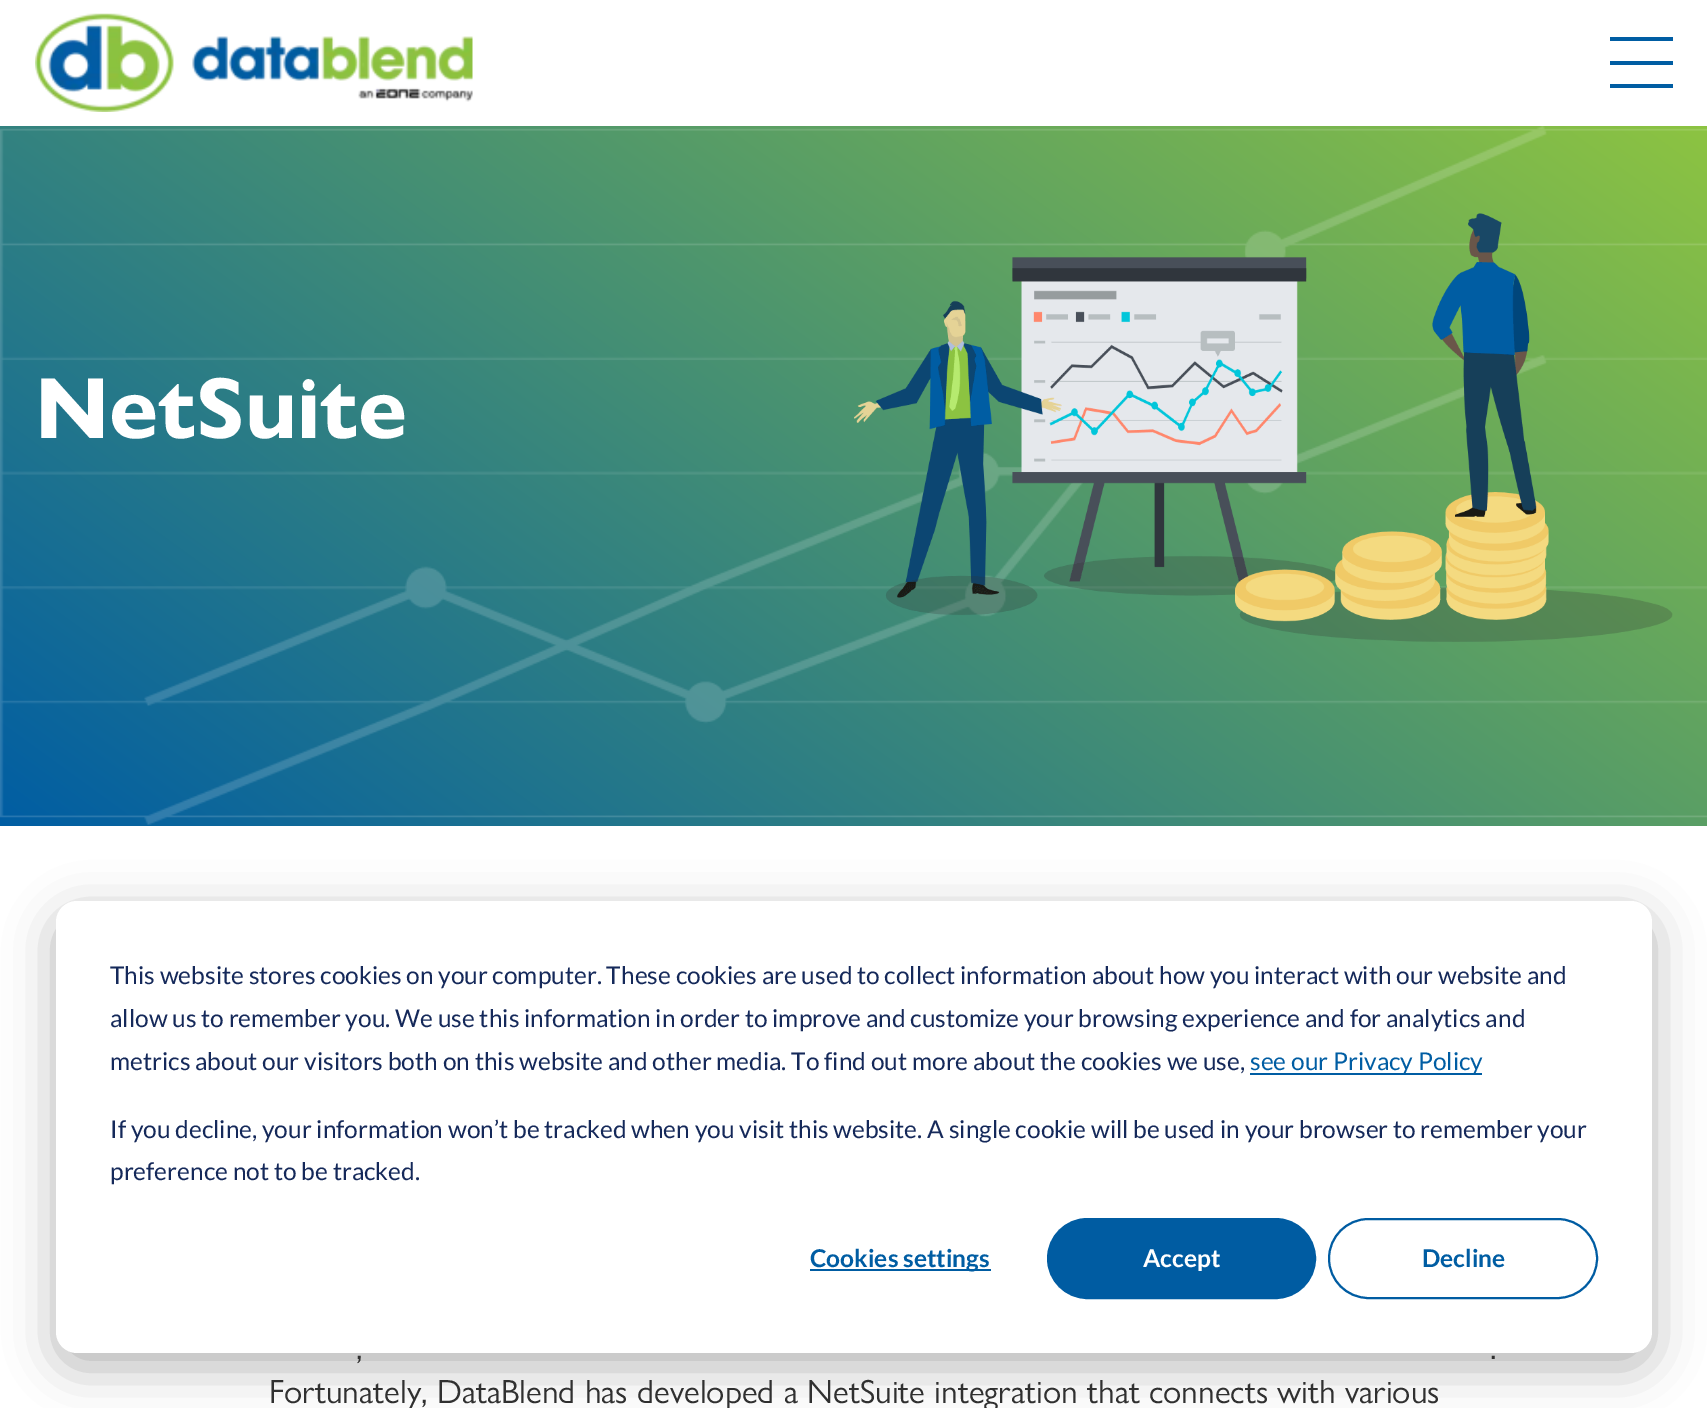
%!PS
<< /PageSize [1707 1408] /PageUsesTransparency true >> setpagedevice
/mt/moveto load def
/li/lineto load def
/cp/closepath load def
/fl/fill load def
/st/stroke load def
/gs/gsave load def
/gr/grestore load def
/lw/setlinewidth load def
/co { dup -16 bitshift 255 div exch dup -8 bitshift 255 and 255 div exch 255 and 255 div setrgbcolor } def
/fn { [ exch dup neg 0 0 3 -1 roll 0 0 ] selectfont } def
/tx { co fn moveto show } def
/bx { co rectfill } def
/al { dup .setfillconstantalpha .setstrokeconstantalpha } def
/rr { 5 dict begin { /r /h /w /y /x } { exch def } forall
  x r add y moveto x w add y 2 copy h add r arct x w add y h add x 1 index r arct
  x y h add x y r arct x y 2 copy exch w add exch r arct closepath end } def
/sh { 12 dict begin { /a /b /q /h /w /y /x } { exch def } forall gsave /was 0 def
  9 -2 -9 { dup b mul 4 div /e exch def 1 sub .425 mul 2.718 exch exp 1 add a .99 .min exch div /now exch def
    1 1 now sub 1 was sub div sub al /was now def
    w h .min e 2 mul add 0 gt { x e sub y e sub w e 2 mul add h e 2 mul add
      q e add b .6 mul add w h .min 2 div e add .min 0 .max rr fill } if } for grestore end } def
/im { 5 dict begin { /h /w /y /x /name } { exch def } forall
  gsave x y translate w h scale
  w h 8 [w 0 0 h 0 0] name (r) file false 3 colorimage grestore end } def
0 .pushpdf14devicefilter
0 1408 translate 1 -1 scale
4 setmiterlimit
0 0 1707 1408 16#FFFFFF bx
(media/1.raw) 35 13 438 99 im
1610 37 63 4 16#005DA3 bx
1610 61 63 4 16#005DA3 bx
1610 84 63 4 16#005DA3 bx
gs 0 126 mt 1707 126 li 1707 826 li 0 826 li cp clip newpath
<< /ShadingType 2 /ColorSpace /DeviceRGB /Coords [393 1111 1315 -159] /Extend [true true] /Function << /FunctionType 2 /Domain [0 1] /C0 [0 .365 .639] /C1 [.549 .765 .255] /N 1 >> >> shfill gr
(media/2.raw) 0 126 1707 699 im
(media/3.raw) 854 213 819 429 im
16#000000 co
56 915 1596 452 21 24.5 .28 sh
16#FFFFFF co
56 901 1596 452 21 rr fl
1250 1073 232 2 16#005DA3 bx
810 1269 181 2 16#005CA2 bx
1048 1219 267 79 39.5 rr gs fl gr
2 lw
st
1329 1219 268 79 39.5 rr st
(NetSuite) 35 438 /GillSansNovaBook-Bold 87.5 16#FFFFFF tx
(,) 356 1359 /GillSansNovaBook-Regular 33.6 16#303030 tx
(.) 1490 1359 /GillSansNovaBook-Regular 33.6 16#303030 tx
(Fortunately, DataBlend has developed a NetSuite integration that connects with various) 269 1403 /GillSansNovaBook-Regular 33.6 16#303030 tx
(This website stores cookies on your computer. These cookies are used to collect information about how you interact with our website and) 110 984 /Lato-Regular 24.5 16#15295A tx
(allow us to remember you. We use this information in order to improve and customize your browsing experience and for analytics and) 110 1027 /Lato-Regular 24.5 16#15295A tx
(metrics about our visitors both on this website and other media. To find out more about the cookies we use,) 110 1070 /Lato-Regular 24.5 16#15295A tx
(see our Privacy Policy) 1250 1070 /Lato-Regular 24.5 16#005DA3 tx
(If you decline, your information won’t be tracked when you visit this website. A single cookie will be used in your browser to remember your) 110 1138 /Lato-Regular 24.5 16#15295A tx
(preference not to be tracked.) 110 1180 /Lato-Regular 24.5 16#15295A tx
(Cookies settings) 810 1267 /Lato-Bold 24.5 16#005DA3 tx
(Accept) 1143 1267 /Lato-Bold 24.5 16#FFFFFF tx
(Decline) 1422 1267 /Lato-Bold 24.5 16#005DA3 tx
.poppdf14devicefilter showpage
